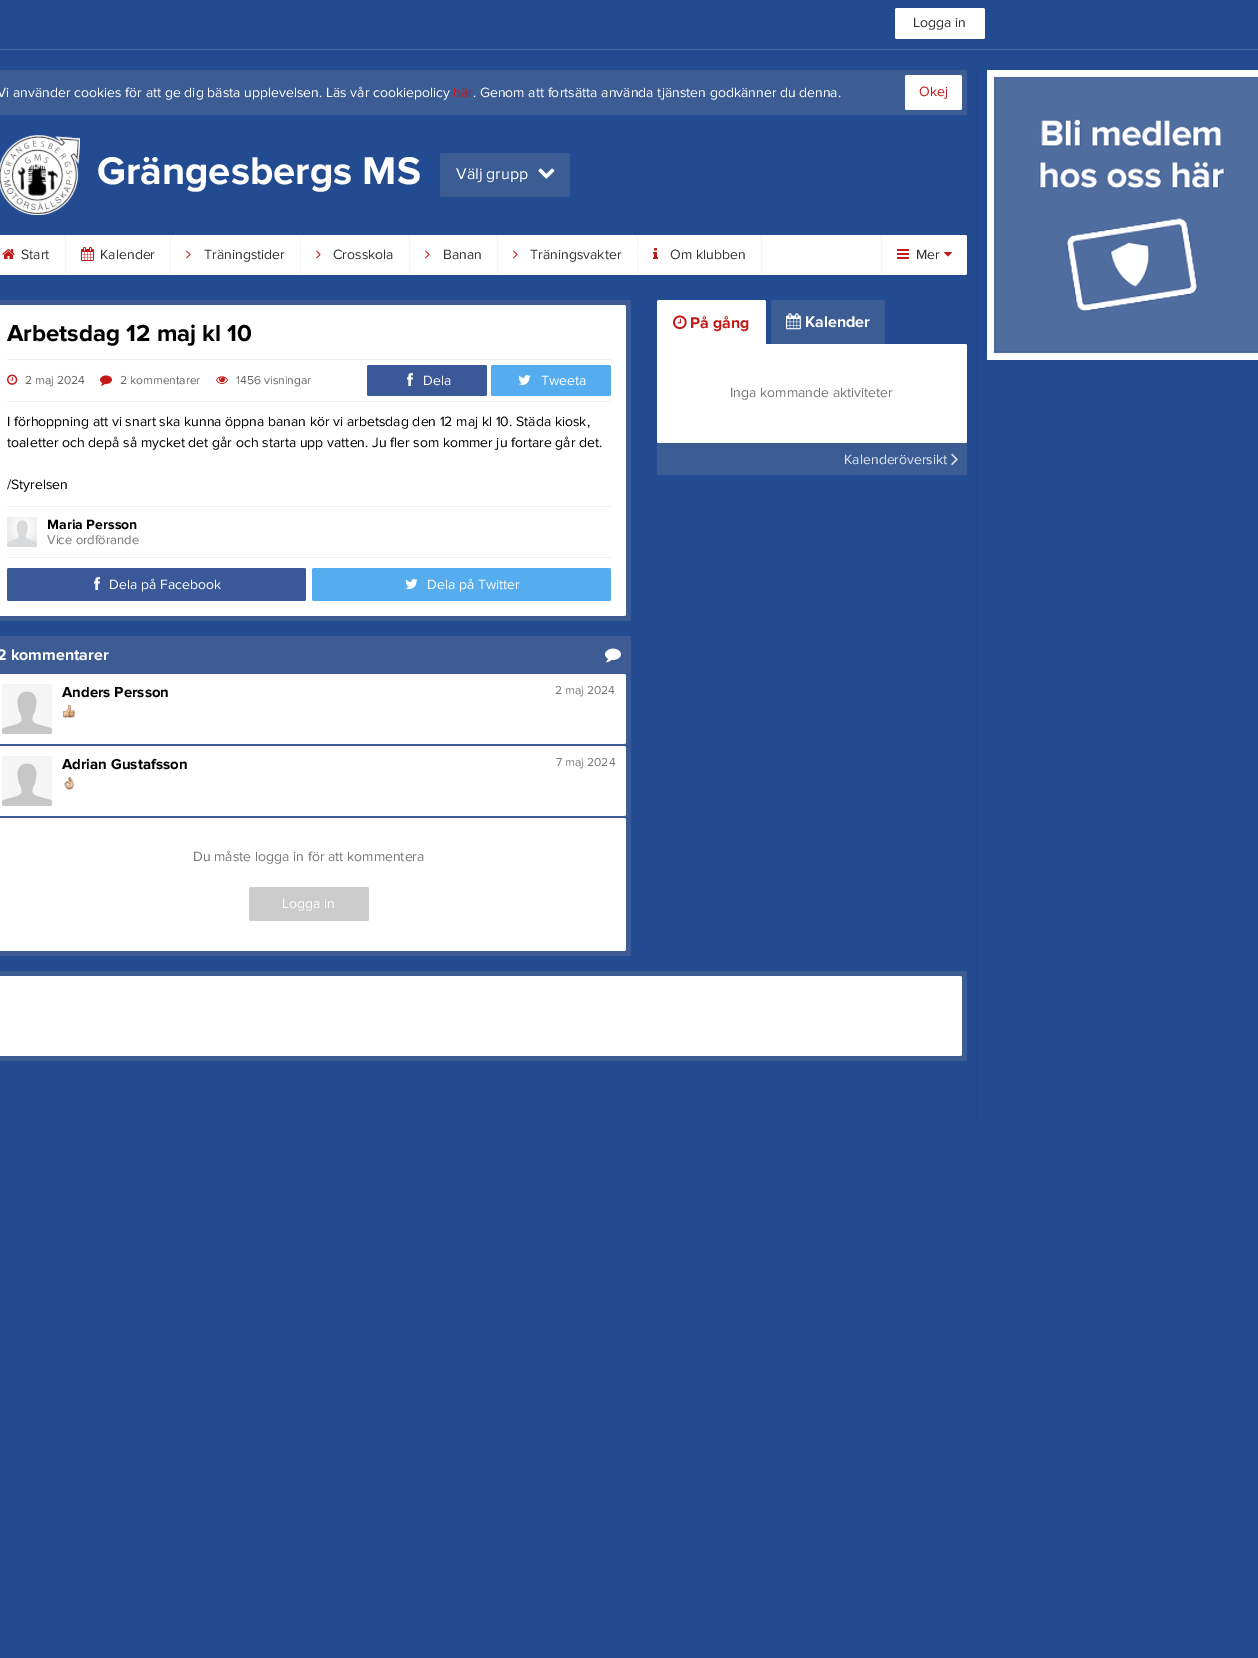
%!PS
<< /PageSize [1258 1658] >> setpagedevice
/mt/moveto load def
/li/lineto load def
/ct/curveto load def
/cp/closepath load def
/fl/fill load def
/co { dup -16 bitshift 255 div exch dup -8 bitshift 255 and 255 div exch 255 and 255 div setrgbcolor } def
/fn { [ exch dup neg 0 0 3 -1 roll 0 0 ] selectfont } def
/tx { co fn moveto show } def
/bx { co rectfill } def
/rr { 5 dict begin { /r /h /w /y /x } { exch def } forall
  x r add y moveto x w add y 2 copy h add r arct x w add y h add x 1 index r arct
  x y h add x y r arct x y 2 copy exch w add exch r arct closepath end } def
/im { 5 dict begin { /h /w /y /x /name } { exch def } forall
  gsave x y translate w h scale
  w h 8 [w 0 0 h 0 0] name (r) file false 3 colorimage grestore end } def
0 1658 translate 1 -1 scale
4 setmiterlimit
0 0 1258 1658 16#234B91 bx
0 49 1258 1 16#4466A2 bx
16#FFFFFF co
895 8 90 31 2 rr fl
16#3C5C94 co
-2 70 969 45 2 rr fl
16#FFFFFF co
905 75 57 35 2 rr fl
(media/1.raw) 0 135 80 80 im
16#3C5C94 co
440 153 130 44 2 rr fl
(media/2.raw) 538 168 17 11 im
16#FFFFFF co
-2 235 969 40 2 rr fl
65 235 1 40 16#F3F3F3 bx
(media/3.raw) 2 249 13 10 im
170 235 1 40 16#F3F3F3 bx
(media/4.raw) 81 247 13 14 im
300 235 1 40 16#F3F3F3 bx
(media/5.raw) 186 250 5 9 im
409 235 1 40 16#F3F3F3 bx
(media/5.raw) 316 250 5 9 im
497 235 1 40 16#F3F3F3 bx
(media/5.raw) 425 250 5 9 im
637 235 1 40 16#F3F3F3 bx
(media/5.raw) 513 250 5 9 im
761 235 1 40 16#F3F3F3 bx
(media/6.raw) 653 248 5 11 im
881 235 1 40 16#F3F3F3 bx
(media/7.raw) 897 249 12 10 im
(media/8.raw) 944 252 8 5 im
16#3C5C93 co
-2 300 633 321 2 rr fl
16#FFFFFF co
-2 305 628 311 2 rr fl
7 359 604 1 16#EFEFEF bx
7 401 604 1 16#EFEFEF bx
(media/9.raw) 7 374 11 11 im
(media/10.raw) 100 375 12 11 im
(media/11.raw) 216 376 12 8 im
16#3B5998 co
367 365 120 31 2 rr fl
(media/12.raw) 407 373 6 13 im
16#55ACEE co
491 365 120 31 2 rr fl
(media/13.raw) 518 375 13 10 im
7 506 604 1 16#EFEFEF bx
(media/14.raw) 7 517 30 30 im
7 557 604 1 16#EFEFEF bx
16#3B5998 co
7 568 299 33 2 rr fl
(media/12.raw) 94 577 6 13 im
16#55ACEE co
312 568 299 33 2 rr fl
(media/13.raw) 405 579 13 10 im
16#3C5C93 co
-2 636 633 320 2 rr fl
(media/15.raw) 605 648 16 15 im
16#FFFFFF co
-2 674 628 70 2 rr fl
(media/16.raw) 2 684 50 50 im
(media/17.raw) 62 704 14 14 im
-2 746 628 70 2 rr fl
(media/16.raw) 2 756 50 50 im
(media/18.raw) 63 776 12 14 im
-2 818 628 133 2 rr fl
16#CCCCCC co
249 887 120 34 2 rr fl
16#FFFFFF co
659 300 mt 764 300 li 765 300 766 301 766 302 ct 766 344 li 657 344 li 657 302 li 657 301 658 300 659 300 ct cp fl
(media/19.raw) 673 315 14 15 im
16#3C5C94 co
657 344 310 131 2 rr fl
16#FFFFFF co
657 344 310 99 2 rr fl
657 344 2 2 16#FFFFFF bx
16#3C5C94 co
773 300 mt 883 300 li 884 300 885 301 885 302 ct 885 344 li 771 344 li 771 302 li 771 301 772 300 773 300 ct cp fl
(media/20.raw) 786 313 15 17 im
(media/21.raw) 951 453 7 12 im
-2 971 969 90 2 rr fl
16#FFFFFF co
-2 976 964 80 2 rr fl
977 70 1 1051 16#204483 bx
991 74 267 282 16#3C5C94 bx
(media/22.raw) 987 70 271 290 im
(Logga in) 913 27 /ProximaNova-Regular 14 16#333333 tx
(Vi använder cookies för att ge dig bästa upplevelsen. Läs vår cookiepolicy) -3 97 /ProximaNova-Regular 14 16#FFFFFF tx
(här) 453 97 /ProximaNova-Regular 14 16#C21919 tx
(. Genom att fortsätta använda tjänsten godkänner du denna.) 473 97 /ProximaNova-Regular 14 16#FFFFFF tx
(Okej) 919 96 /ProximaNova-Regular 14 16#C21919 tx
(Grängesbergs MS) 97 184 /ProximaNova-Bold 40 16#FFFFFF tx
(Välj grupp) 456 179 /ProximaNova-Regular 16 16#FFFFFF tx
(Start) 21 259 /ProximaNova-Regular 14 16#333333 tx
(Kalender) 100 259 /ProximaNova-Regular 14 16#333333 tx
(Träningstider) 204 259 /ProximaNova-Regular 14 16#333333 tx
(Crosskola) 333 259 /ProximaNova-Regular 14 16#333333 tx
(Banan) 443 259 /ProximaNova-Regular 14 16#333333 tx
(Träningsvakter) 530 259 /ProximaNova-Regular 14 16#333333 tx
(Om klubben) 670 259 /ProximaNova-Regular 14 16#333333 tx
(Mer) 916 259 /ProximaNova-Regular 14 16#333333 tx
(Arbetsdag 12 maj kl 10) 7 341 /ProximaNova-Bold 24 16#000000 tx
(2 maj 2024) 25 384 /ProximaNova-Regular 12 16#666666 tx
(2 kommentarer) 120 384 /ProximaNova-Regular 12 16#666666 tx
(1456 visningar) 236 384 /ProximaNova-Regular 12 16#666666 tx
(Dela) 423 385 /ProximaNova-Regular 14 16#FFFFFF tx
(Tweeta) 541 385 /ProximaNova-Regular 14 16#FFFFFF tx
(I förhoppning att vi snart ska kunna öppna banan kör vi arbetsdag den 12 maj kl 10. Städa kiosk,) 7 426 /ProximaNova-Regular 14 16#000000 tx
(toaletter och depå så mycket det går och starta upp vatten. Ju fler som kommer ju fortare går det.) 7 447 /ProximaNova-Regular 14 16#000000 tx
(/Styrelsen) 7 489 /ProximaNova-Regular 14 16#000000 tx
(Maria Persson) 47 529 /ProximaNova-Bold 14 16#000000 tx
(Vice ordförande) 47 544 /ProximaNova-Regular 13 16#777777 tx
(Dela på Facebook) 109 589 /ProximaNova-Regular 14 16#FFFFFF tx
(Dela på Twitter) 427 589 /ProximaNova-Regular 14 16#FFFFFF tx
(2 kommentarer) -3 660 /ProximaNova-Bold 16 16#FFFFFF tx
(Anders Persson) 62 697 /ProximaNova-Bold 15 16#000000 tx
(2 maj 2024) 555 694 /ProximaNova-Regular 12 16#777777 tx
(Adrian Gustafsson) 62 769 /ProximaNova-Bold 15 16#000000 tx
(7 maj 2024) 556 766 /ProximaNova-Regular 12 16#777777 tx
(Du måste logga in för att kommentera) 193 861 /ProximaNova-Regular 14 16#777777 tx
(Logga in) 282 908 /ProximaNova-Regular 14 16#FFFFFF tx
(På gång) 690 328 /ProximaNova-Bold 16 16#C21919 tx
(Kalender) 805 327 /ProximaNova-Bold 16 16#FFFFFF tx
(Inga kommande aktiviteter) 730 397 /ProximaNova-Regular 14 16#777777 tx
(Kalenderöversikt) 844 464 /ProximaNova-Regular 14 16#E2E7EF tx
showpage
